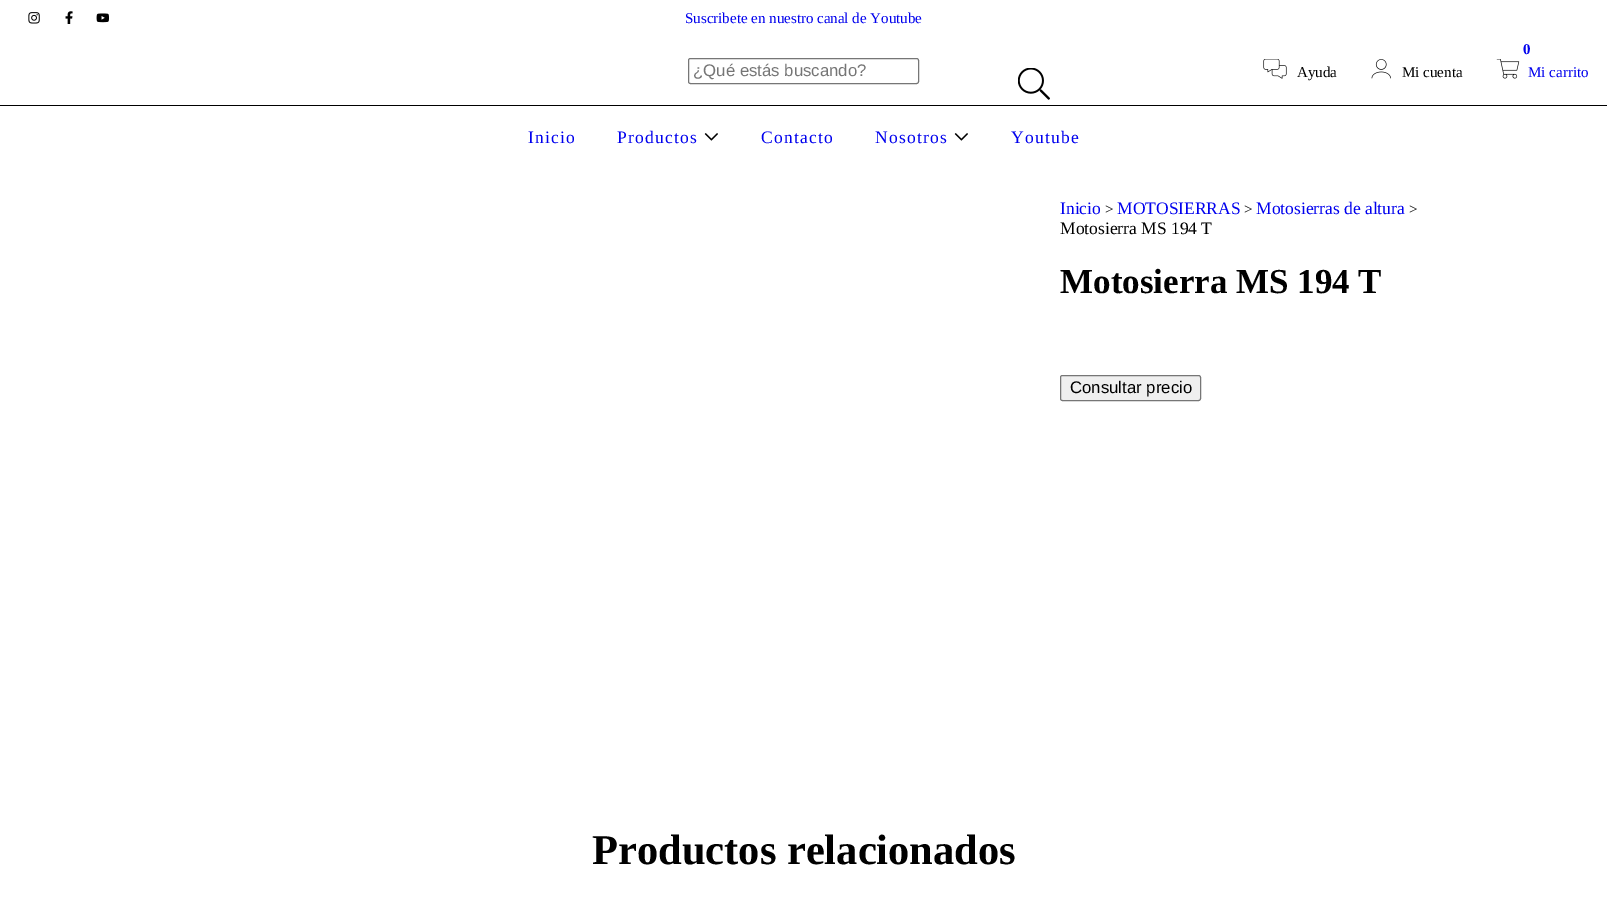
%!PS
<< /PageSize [1607 915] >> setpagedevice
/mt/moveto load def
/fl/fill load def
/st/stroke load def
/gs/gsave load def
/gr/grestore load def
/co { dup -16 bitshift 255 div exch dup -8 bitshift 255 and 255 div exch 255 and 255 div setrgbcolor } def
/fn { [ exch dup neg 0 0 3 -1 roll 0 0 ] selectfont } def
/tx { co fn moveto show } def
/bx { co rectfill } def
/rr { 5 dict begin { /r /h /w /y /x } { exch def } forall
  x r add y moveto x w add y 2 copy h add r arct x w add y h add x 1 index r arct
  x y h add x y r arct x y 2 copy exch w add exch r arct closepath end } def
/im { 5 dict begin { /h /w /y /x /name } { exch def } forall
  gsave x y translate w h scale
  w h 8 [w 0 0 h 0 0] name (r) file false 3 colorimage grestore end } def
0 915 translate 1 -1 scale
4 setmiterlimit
0 0 1607 915 16#FFFFFF bx
(media/1.raw) 28 12 12 12 im
(media/2.raw) 65 11 8 13 im
(media/3.raw) 96 13 13 10 im
16#767676 co
688.5 58.5 230 25 2 rr st
(media/4.raw) 1018 68 32 32 im
(media/5.raw) 1263 59 24 20 im
(media/6.raw) 1371 59 20 20 im
(media/7.raw) 1496 59 24 20 im
0 105 1607 1 16#000000 bx
(media/8.raw) 704 133 14 8 im
(media/8.raw) 954 133 14 8 im
16#EFEFEF co
1060.5 375.5 140 25 2 rr gs fl gr
16#767676 co
st
(Suscribete en nuestro canal de Youtube) 685 23 /LiberationSerif-Regular 15 16#0000EE tx
(¿Qué estás buscando?) 693 76 /LiberationSans-Regular 16.75 16#757575 tx
(Ayuda) 1297 77 /LiberationSerif-Regular 15 16#000000 tx
(Mi cuenta) 1402 77 /LiberationSerif-Regular 15 16#000000 tx
(0) 1523 54 /LiberationSerif-Bold 15 16#0000EE tx
(Mi carrito) 1528 77 /LiberationSerif-Regular 15 16#0000EE tx
/LiberationSerif-Regular 17.5 fn
528 143 mt 1.25 0 (Inicio) ashow
617 143 mt 1.25 0 (Productos) ashow
761 143 mt 1.25 0 (Contacto) ashow
875 143 mt 1.25 0 (Nosotros) ashow
1011 143 mt 1.25 0 (Youtube) ashow
(Inicio) 1060 214 /LiberationSerif-Regular 17.5 16#0000EE tx
(>) 1105 214 /LiberationSerif-Regular 15 16#000000 tx
(MOTOSIERRAS) 1117 214 /LiberationSerif-Regular 17.5 16#0000EE tx
(>) 1244 214 /LiberationSerif-Regular 15 16#000000 tx
(Motosierras de altura) 1256 214 /LiberationSerif-Regular 17.5 16#0000EE tx
(>) 1409 214 /LiberationSerif-Regular 15 16#000000 tx
(Motosierra MS 194 T) 1060 234 /LiberationSerif-Regular 17.5 16#000000 tx
(Motosierra MS 194 T) 1060 293 /LiberationSerif-Bold 35 16#000000 tx
(Consultar precio) 1070 393 /LiberationSans-Regular 16.75 16#000000 tx
(Productos relacionados) 592 864 /LiberationSerif-Bold 42.5 16#000000 tx
showpage
